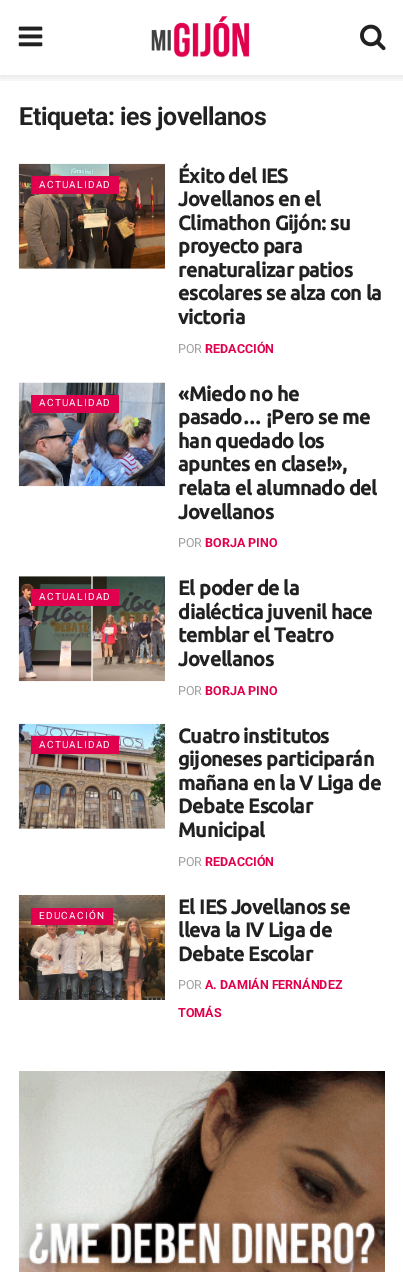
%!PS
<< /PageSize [403 1272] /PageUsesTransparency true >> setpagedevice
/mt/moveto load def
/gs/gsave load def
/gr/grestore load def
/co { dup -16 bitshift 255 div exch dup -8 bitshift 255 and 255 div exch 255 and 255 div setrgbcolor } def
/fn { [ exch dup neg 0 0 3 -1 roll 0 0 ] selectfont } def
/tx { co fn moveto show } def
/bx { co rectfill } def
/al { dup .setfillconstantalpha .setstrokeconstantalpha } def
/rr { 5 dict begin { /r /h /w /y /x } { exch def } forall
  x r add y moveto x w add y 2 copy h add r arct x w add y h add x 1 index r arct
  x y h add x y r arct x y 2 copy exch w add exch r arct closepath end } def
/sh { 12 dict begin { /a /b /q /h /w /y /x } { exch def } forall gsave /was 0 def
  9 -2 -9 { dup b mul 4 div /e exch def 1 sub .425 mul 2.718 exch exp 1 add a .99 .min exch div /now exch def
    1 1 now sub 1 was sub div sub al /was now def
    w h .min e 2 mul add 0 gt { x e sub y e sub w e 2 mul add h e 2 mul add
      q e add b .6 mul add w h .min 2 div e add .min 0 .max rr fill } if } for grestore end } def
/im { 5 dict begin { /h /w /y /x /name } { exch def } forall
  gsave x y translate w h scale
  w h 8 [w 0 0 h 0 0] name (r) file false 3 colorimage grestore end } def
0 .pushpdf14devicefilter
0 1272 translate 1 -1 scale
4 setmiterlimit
0 0 403 1272 16#FFFFFF bx
gs
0 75 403 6 rectclip
16#000000 co
0 3 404 75 0 4 .1 sh
gr
(media/1.raw) 18 26 25 21 im
(media/2.raw) 151 16 99 42 im
(media/3.raw) 360 24 26 27 im
19 268 146 1 16#F7F7F7 bx
(media/4.raw) 18 163 147 106 im
31 176 88 18 16#E0004D bx
(media/5.raw) 18 382 147 105 im
31 395 88 18 16#E0004D bx
19 576 146 1 16#F7F7F7 bx
(media/6.raw) 18 576 147 106 im
31 589 88 17 16#E0004D bx
19 828 146 1 16#F7F7F7 bx
(media/7.raw) 18 723 147 106 im
31 736 88 18 16#E0004D bx
(media/8.raw) 18 895 147 105 im
31 908 82 17 16#E0004D bx
(media/9.raw) 19 1071 366 201 im
/Roboto-Bold 25 fn
16#212121 co
19 125 mt -.5 0 (Etiqueta: ies jovellanos) ashow
/Roboto-Regular 10 fn
16#FFFFFF co
39 188 mt 1.25 0 (ACTUALIDAD) ashow
/Ubuntu-Bold 20 fn
16#212121 co
178 183 mt -.4 0 (Éxito del IES) ashow
178 206 mt -.4 0 (Jovellanos en el) ashow
178 230 mt -.4 0 (Climathon Gijón: su) ashow
178 253 mt -.4 0 (proyecto para) ashow
178 277 mt -.4 0 (renaturalizar patios) ashow
178 300 mt -.4 0 (escolares se alza con la) ashow
178 324 mt -.4 0 (victoria) ashow
(POR) 178 353 /Roboto-Regular 12.5 16#A0A0A0 tx
(REDACCIÓN) 205 353 /Roboto-Bold 12.5 16#E0004D tx
/Roboto-Regular 10 fn
16#FFFFFF co
39 406 mt 1.25 0 (ACTUALIDAD) ashow
/Ubuntu-Bold 20 fn
16#212121 co
178 401 mt -.4 0 («Miedo no he) ashow
178 424 mt -.4 0 (pasado… ¡Pero se me) ashow
178 448 mt -.4 0 (han quedado los) ashow
178 471 mt -.4 0 (apuntes en clase!»,) ashow
178 495 mt -.4 0 (relata el alumnado del) ashow
178 519 mt -.4 0 (Jovellanos) ashow
(POR) 178 547 /Roboto-Regular 12.5 16#A0A0A0 tx
(BORJA PINO) 205 547 /Roboto-Bold 12.5 16#E0004D tx
/Roboto-Regular 10 fn
16#FFFFFF co
39 600 mt 1.25 0 (ACTUALIDAD) ashow
/Ubuntu-Bold 20 fn
16#212121 co
178 595 mt -.4 0 (El poder de la) ashow
178 619 mt -.4 0 (dialéctica juvenil hace) ashow
178 642 mt -.4 0 (temblar el Teatro) ashow
178 666 mt -.4 0 (Jovellanos) ashow
(POR) 178 695 /Roboto-Regular 12.5 16#A0A0A0 tx
(BORJA PINO) 205 695 /Roboto-Bold 12.5 16#E0004D tx
/Roboto-Regular 10 fn
16#FFFFFF co
39 748 mt 1.25 0 (ACTUALIDAD) ashow
/Ubuntu-Bold 20 fn
16#212121 co
178 743 mt -.4 0 (Cuatro institutos) ashow
178 766 mt -.4 0 (gijoneses participarán) ashow
178 790 mt -.4 0 (mañana en la V Liga de) ashow
178 813 mt -.4 0 (Debate Escolar) ashow
178 837 mt -.4 0 (Municipal) ashow
(POR) 178 866 /Roboto-Regular 12.5 16#A0A0A0 tx
(REDACCIÓN) 205 866 /Roboto-Bold 12.5 16#E0004D tx
/Roboto-Regular 10 fn
16#FFFFFF co
39 919 mt 1.25 0 (EDUCACIÓN) ashow
/Ubuntu-Bold 20 fn
16#212121 co
178 914 mt -.4 0 (El IES Jovellanos se) ashow
178 937 mt -.4 0 (lleva la IV Liga de) ashow
178 961 mt -.4 0 (Debate Escolar) ashow
(POR) 178 989 /Roboto-Regular 12.5 16#A0A0A0 tx
(A. DAMIÁN FERNÁNDEZ) 205 989 /Roboto-Bold 12.5 16#E0004D tx
(TOMÁS) 178 1017 /Roboto-Bold 12.5 16#E0004D tx
.poppdf14devicefilter showpage
